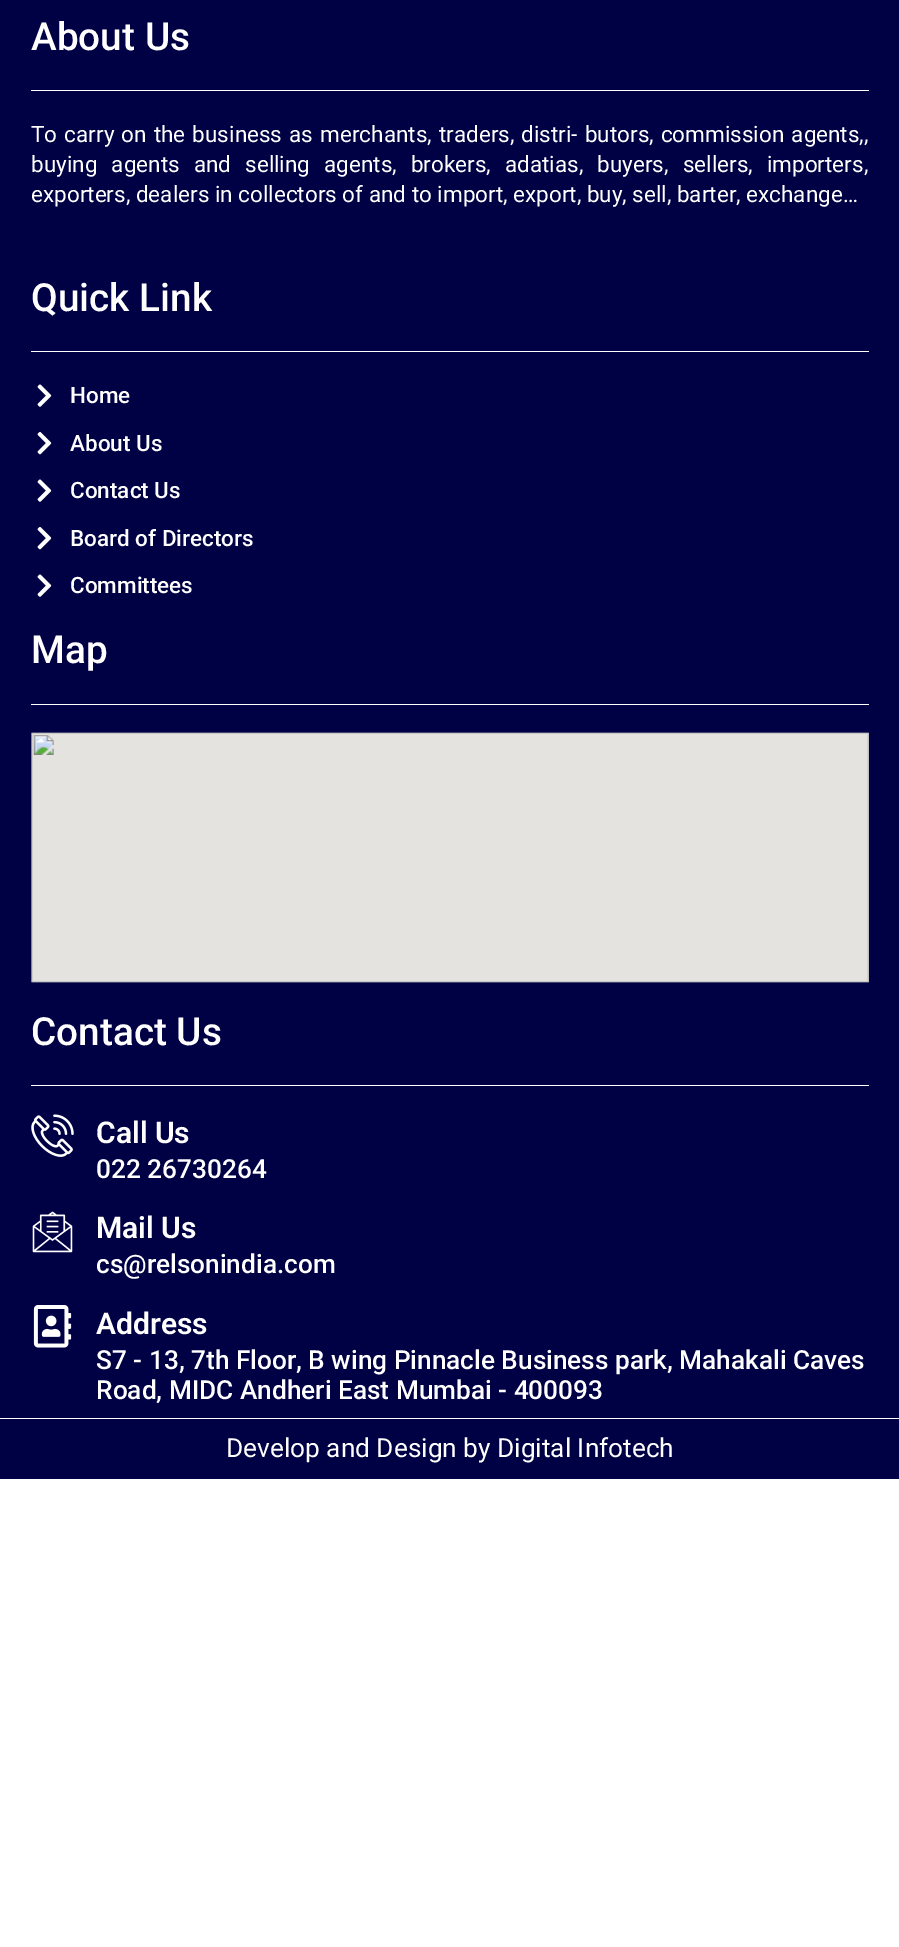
%!PS
<< /PageSize [899 1947] >> setpagedevice
/mt/moveto load def
/co { dup -16 bitshift 255 div exch dup -8 bitshift 255 and 255 div exch 255 and 255 div setrgbcolor } def
/fn { [ exch dup neg 0 0 3 -1 roll 0 0 ] selectfont } def
/tx { co fn moveto show } def
/bx { co rectfill } def
/im { 5 dict begin { /h /w /y /x /name } { exch def } forall
  gsave x y translate w h scale
  w h 8 [w 0 0 h 0 0] name (r) file false 3 colorimage grestore end } def
0 1947 translate 1 -1 scale
4 setmiterlimit
0 0 899 1947 16#FFFFFF bx
0 0 899 1418 16#000044 bx
31 90 838 1 16#FFFFFF bx
31 351 838 1 16#FFFFFF bx
(media/1.raw) 37 384 15 23 im
(media/2.raw) 37 432 15 23 im
(media/1.raw) 37 479 15 23 im
(media/2.raw) 37 527 15 23 im
(media/1.raw) 37 574 15 23 im
31 704 838 1 16#FFFFFF bx
(media/3.raw) 31 732 838 251 im
31 1085 838 1 16#FFFFFF bx
(media/4.raw) 31 1114 43 43 im
(media/5.raw) 32 1211 41 42 im
(media/6.raw) 33 1305 39 43 im
0 1419 899 60 16#000044 bx
(About Us) 31 50 /Roboto-Medium 38.75 16#FFFFFF tx
/Roboto-Regular 22.5 fn
31 142 mt 1.5 0 32 (To carry on the business as merchants, traders, distri- butors, commission agents,,) widthshow
31 172 mt 8.5 0 32 (buying agents and selling agents, brokers, adatias, buyers, sellers, importers,) widthshow
(exporters, dealers in collectors of and to import, export, buy, sell, barter, exchange…) 31 202 /Roboto-Regular 22.5 16#FFFFFF tx
(Quick Link) 31 311 /Roboto-Medium 38.75 16#FFFFFF tx
(Home) 70 403 /Roboto-Medium 22.5 16#FFFFFF tx
(About Us) 70 451 /Roboto-Medium 22.5 16#FFFFFF tx
(Contact Us) 70 498 /Roboto-Medium 22.5 16#FFFFFF tx
(Board of Directors) 70 546 /Roboto-Medium 22.5 16#FFFFFF tx
(Committees) 70 593 /Roboto-Medium 22.5 16#FFFFFF tx
(Map) 31 663 /Roboto-Medium 38.75 16#FFFFFF tx
(Contact Us) 31 1045 /Roboto-Medium 38.75 16#FFFFFF tx
(Call Us) 96 1143 /Roboto-SemiBold 30 16#FFFFFF tx
(022 26730264) 96 1178 /Roboto-Medium 26.25 16#FFFFFF tx
(Mail Us) 96 1238 /Roboto-SemiBold 30 16#FFFFFF tx
(cs@relsonindia.com) 96 1273 /Roboto-Medium 26.25 16#FFFFFF tx
(Address) 96 1334 /Roboto-SemiBold 30 16#FFFFFF tx
(S7 - 13, 7th Floor, B wing Pinnacle Business park, Mahakali Caves) 96 1369 /Roboto-Medium 26.25 16#FFFFFF tx
(Road, MIDC Andheri East Mumbai - 400093) 96 1399 /Roboto-Medium 26.25 16#FFFFFF tx
(Develop and Design by Digital Infotech) 226 1457 /Roboto-Regular 26.25 16#FFFFFF tx
showpage
